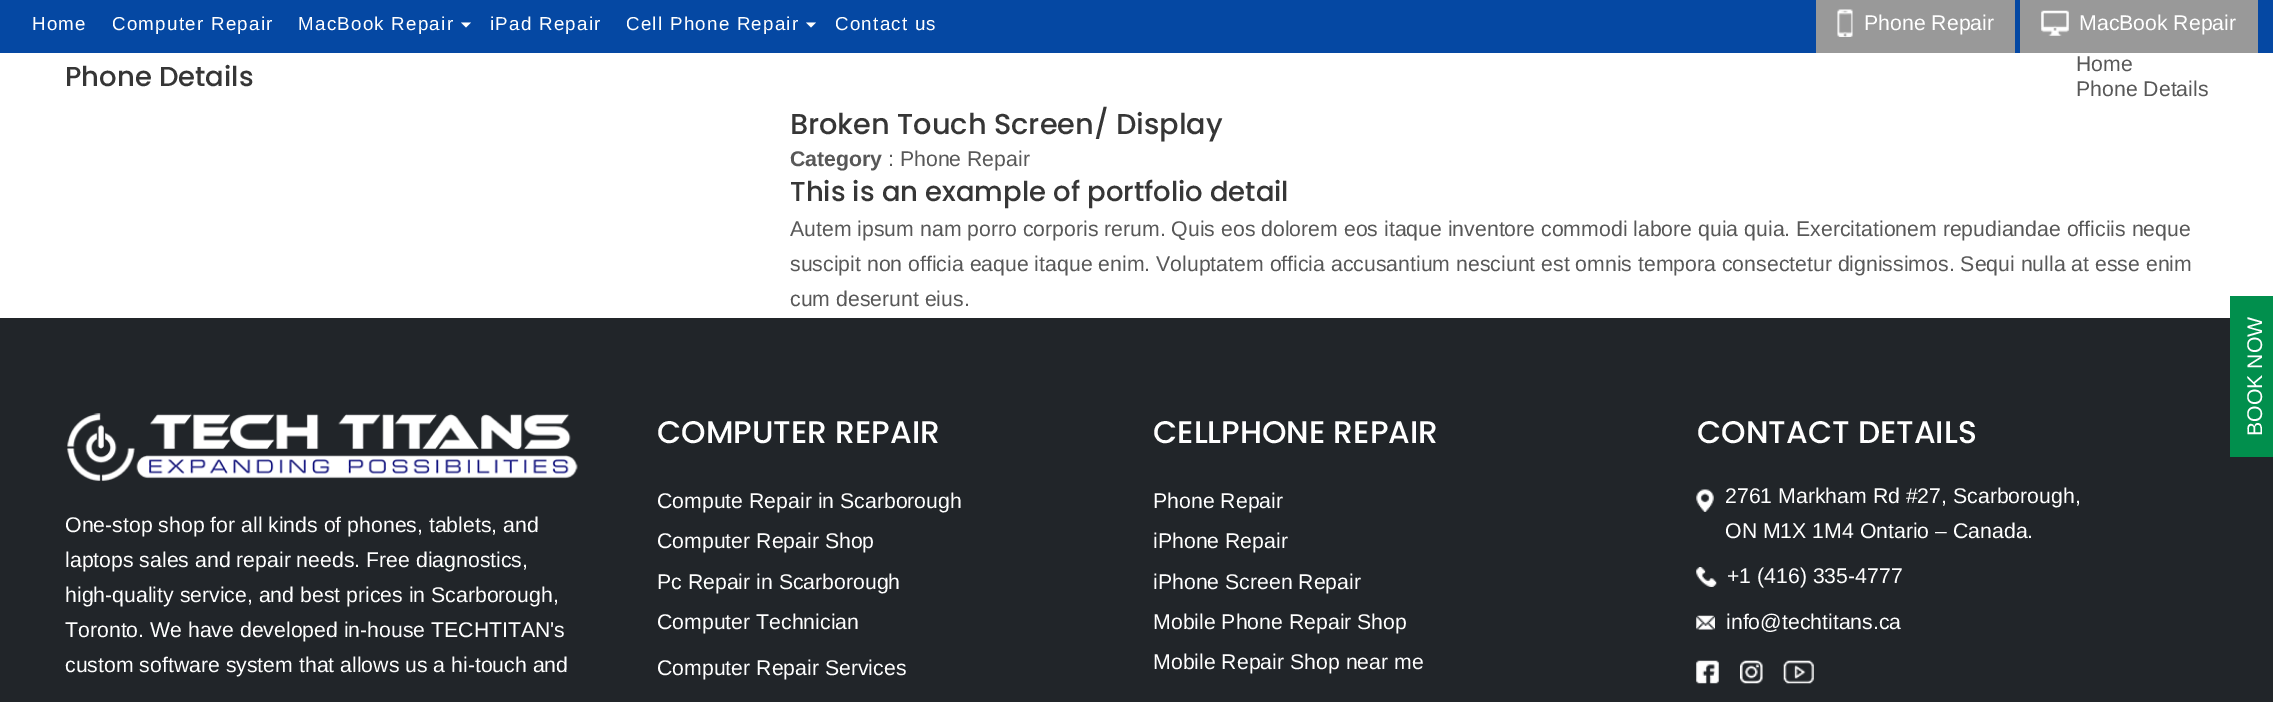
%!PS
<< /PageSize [2273 702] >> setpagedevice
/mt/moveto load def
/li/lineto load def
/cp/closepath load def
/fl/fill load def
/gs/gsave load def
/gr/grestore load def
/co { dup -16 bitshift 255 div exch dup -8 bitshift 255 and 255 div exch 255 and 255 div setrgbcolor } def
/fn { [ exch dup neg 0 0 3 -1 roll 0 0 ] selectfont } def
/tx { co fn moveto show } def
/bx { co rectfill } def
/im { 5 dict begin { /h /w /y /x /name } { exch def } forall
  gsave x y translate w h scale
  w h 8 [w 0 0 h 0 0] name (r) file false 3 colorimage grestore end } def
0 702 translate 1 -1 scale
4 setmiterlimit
0 0 2273 702 16#FFFFFF bx
0 0 2273 53 16#0548A3 bx
16#FFFFFF co
461 22.5 mt 471 22.5 li 466 27.5 li cp fl
806 22.5 mt 816 22.5 li 811 27.5 li cp fl
1816 0 199 53 16#999999 bx
(media/1.raw) 1837 9 16 28 im
2020 0 238 53 16#999999 bx
(media/2.raw) 2041 10 28 26 im
0 318 2273 384 16#212529 bx
2230 296 43 161 16#018F4D bx
(media/3.raw) 67 413 511 68 im
(media/4.raw) 1696 489 18 23 im
(media/5.raw) 1696 567 21 20 im
(media/6.raw) 1696 615 19 15 im
(media/7.raw) 1696 660 23 24 im
(media/8.raw) 1740 660 23 24 im
(media/9.raw) 1783 660 31 24 im
/LiberationSans-Regular 18.75 fn
16#FFFFFF co
32 30 mt 1.25 0 (Home) ashow
112 30 mt 1.25 0 (Computer Repair) ashow
298 30 mt 1.25 0 (MacBook Repair) ashow
490 30 mt 1.25 0 (iPad Repair) ashow
626 30 mt 1.25 0 (Cell Phone Repair) ashow
835 30 mt 1.25 0 (Contact us) ashow
(Phone Repair) 1864 30 /LiberationSans-Regular 21.25 16#FFFFFF tx
(MacBook Repair) 2079 30 /LiberationSans-Regular 21.25 16#FFFFFF tx
gs 2262 436 translate -90 rotate 0 0 mt (BOOK NOW) show gr
(Phone Details) 65 86 /Poppins-Medium 27.5 16#363636 tx
(Home) 2076 71 /LiberationSans-Regular 21.25 16#585858 tx
(Phone Details) 2076 96 /LiberationSans-Regular 21.25 16#585858 tx
(Broken Touch Screen/ Display) 790 134 /Poppins-Medium 28.75 16#363636 tx
(Category) 790 166 /LiberationSans-Bold 21.25 16#585858 tx
(: Phone Repair) 888 166 /LiberationSans-Regular 21.25 16#585858 tx
(This is an example of portfolio detail) 790 201 /Poppins-Medium 27.5 16#363636 tx
(Autem ipsum nam porro corporis rerum. Quis eos dolorem eos itaque inventore commodi labore quia quia. Exercitationem repudiandae officiis neque) 790 236 /LiberationSans-Regular 21.25 16#585858 tx
(suscipit non officia eaque itaque enim. Voluptatem officia accusantium nesciunt est omnis tempora consectetur dignissimos. Sequi nulla at esse enim) 790 271 /LiberationSans-Regular 21.25 16#585858 tx
(cum deserunt eius.) 790 306 /LiberationSans-Regular 21.25 16#585858 tx
(One-stop shop for all kinds of phones, tablets, and) 65 532 /LiberationSans-Regular 21.25 16#FFFFFF tx
(laptops sales and repair needs. Free diagnostics,) 65 567 /LiberationSans-Regular 21.25 16#FFFFFF tx
(high-quality service, and best prices in Scarborough,) 65 602 /LiberationSans-Regular 21.25 16#FFFFFF tx
(Toronto. We have developed in-house TECHTITAN's) 65 637 /LiberationSans-Regular 21.25 16#FFFFFF tx
(custom software system that allows us a hi-touch and) 65 672 /LiberationSans-Regular 21.25 16#FFFFFF tx
(COMPUTER REPAIR) 657 443 /Poppins-Medium 31.25 16#FFFFFF tx
(Compute Repair in Scarborough) 657 508 /LiberationSans-Regular 21.25 16#FFFFFF tx
(Computer Repair Shop) 657 548 /LiberationSans-Regular 21.25 16#FFFFFF tx
(Pc Repair in Scarborough) 657 589 /LiberationSans-Regular 21.25 16#FFFFFF tx
(Computer Technician) 657 629 /LiberationSans-Regular 21.25 16#FFFFFF tx
(Computer Repair Services) 657 675 /LiberationSans-Regular 21.25 16#FFFFFF tx
(CELLPHONE REPAIR) 1153 443 /Poppins-Medium 31.25 16#FFFFFF tx
(Phone Repair) 1153 508 /LiberationSans-Regular 21.25 16#FFFFFF tx
(iPhone Repair) 1153 548 /LiberationSans-Regular 21.25 16#FFFFFF tx
(iPhone Screen Repair) 1153 589 /LiberationSans-Regular 21.25 16#FFFFFF tx
(Mobile Phone Repair Shop) 1153 629 /LiberationSans-Regular 21.25 16#FFFFFF tx
(Mobile Repair Shop near me) 1153 669 /LiberationSans-Regular 21.25 16#FFFFFF tx
(CONTACT DETAILS) 1697 443 /Poppins-Medium 31.25 16#FFFFFF tx
(2761 Markham Rd #27, Scarborough,) 1725 503 /LiberationSans-Regular 21.25 16#FFFFFF tx
(ON M1X 1M4 Ontario – Canada.) 1725 538 /LiberationSans-Regular 21.25 16#FFFFFF tx
(+1 \(416\) 335-4777) 1727 583 /LiberationSans-Regular 21.25 16#FFFFFF tx
(info@techtitans.ca) 1726 629 /LiberationSans-Regular 21.25 16#FFFFFF tx
showpage
